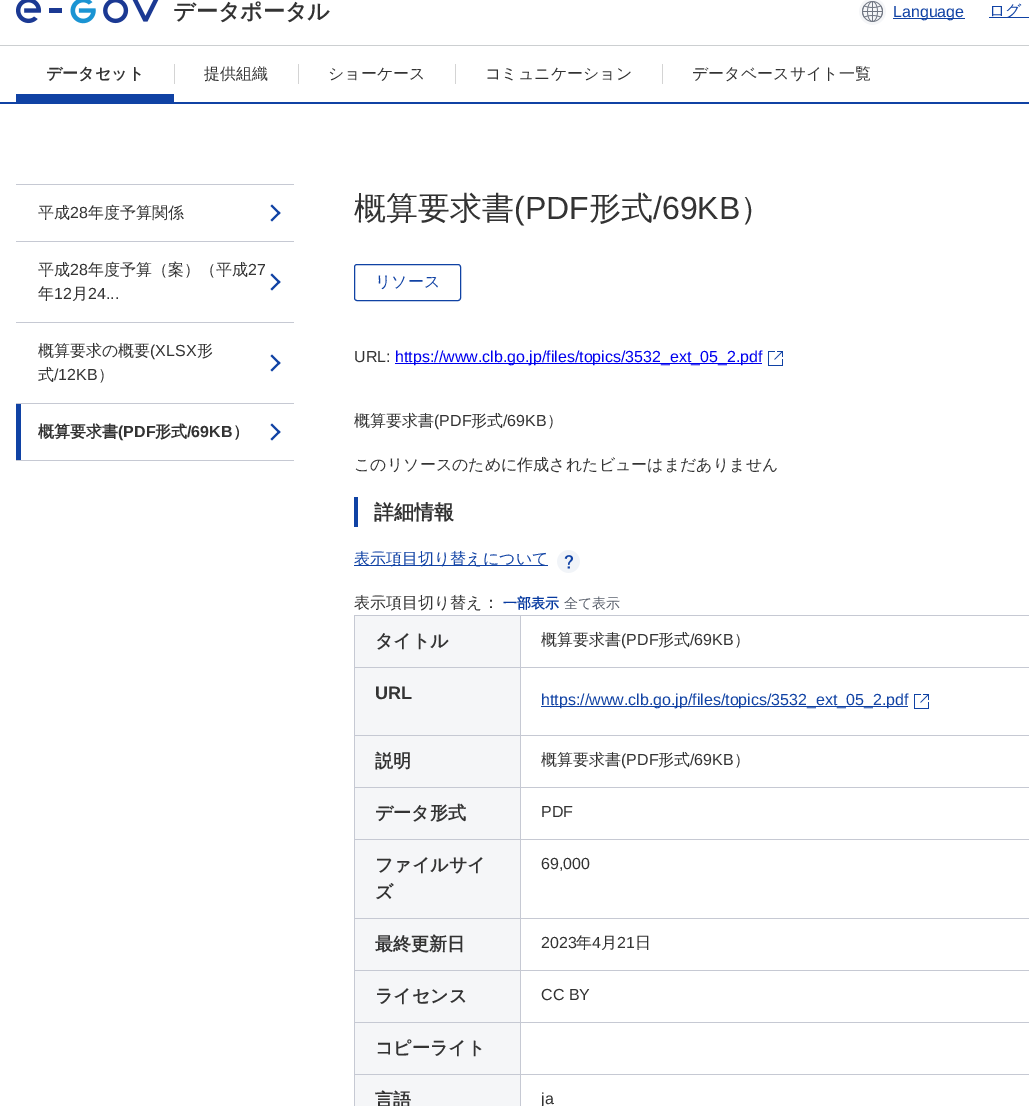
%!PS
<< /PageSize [1029 1106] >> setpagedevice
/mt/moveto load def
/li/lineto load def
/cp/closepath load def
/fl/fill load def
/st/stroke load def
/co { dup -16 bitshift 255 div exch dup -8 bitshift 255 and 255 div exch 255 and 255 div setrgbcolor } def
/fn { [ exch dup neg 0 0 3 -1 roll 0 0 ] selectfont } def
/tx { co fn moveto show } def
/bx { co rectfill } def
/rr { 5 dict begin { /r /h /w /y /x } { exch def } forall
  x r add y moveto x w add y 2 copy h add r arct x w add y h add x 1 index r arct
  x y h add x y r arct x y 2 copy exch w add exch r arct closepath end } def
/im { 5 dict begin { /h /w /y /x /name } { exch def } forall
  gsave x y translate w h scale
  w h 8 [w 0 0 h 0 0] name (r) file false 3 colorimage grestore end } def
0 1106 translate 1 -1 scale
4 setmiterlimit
0 0 1029 1106 16#FFFFFF bx
0 45 1029 1 16#CCCFD1 bx
(media/1.raw) 16 0 143 24 im
(media/2.raw) 859 0 27 25 im
893 18 72 1 16#1042A4 bx
989 17 40 1 16#1042A4 bx
0 102 1029 2 16#1042A4 bx
16 94 158 8 16#1042A4 bx
174 64 1 20 16#D4D4D4 bx
298 64 1 20 16#D4D4D4 bx
455 64 1 20 16#D4D4D4 bx
662 64 1 20 16#D4D4D4 bx
16 184 278 1 16#C6C9D3 bx
16 241 278 1 16#C6C9D3 bx
16#1042A4 co
270.5 206 mt 272 204.5 li 280.5 213 li 279 214.5 li cp fl
270.5 220 mt 279 211.5 li 280.5 213 li 272 221.5 li cp fl
16 322 278 1 16#C6C9D3 bx
16#1042A4 co
270.5 275 mt 272 273.5 li 280.5 282 li 279 283.5 li cp fl
270.5 289 mt 279 280.5 li 280.5 282 li 272 290.5 li cp fl
16 403 278 1 16#C6C9D3 bx
16#1042A4 co
270.5 356 mt 272 354.5 li 280.5 363 li 279 364.5 li cp fl
270.5 370 mt 279 361.5 li 280.5 363 li 272 371.5 li cp fl
16 460 278 1 16#C6C9D3 bx
16 404 5 56 16#1042A4 bx
270.5 425 mt 272 423.5 li 280.5 432 li 279 433.5 li cp fl
270.5 439 mt 279 430.5 li 280.5 432 li 272 440.5 li cp fl
354.5 264.5 106 36 2.5 rr st
395 363 367 1 16#0000EE bx
(media/3.raw) 768 351 15 15 im
354 497 4 30 16#1042A4 bx
354 565 194 1 16#1042A4 bx
(media/4.raw) 557 550 23 23 im
355 616 165 51 16#F5F6F8 bx
520 615 509 1 16#C6C9D3 bx
520 667 509 1 16#C6C9D3 bx
520 735 509 1 16#C6C9D3 bx
520 787 509 1 16#C6C9D3 bx
520 839 509 1 16#C6C9D3 bx
520 918 509 1 16#C6C9D3 bx
520 970 509 1 16#C6C9D3 bx
520 1022 509 1 16#C6C9D3 bx
520 1074 509 1 16#C6C9D3 bx
520 1074 1 32 16#C6C9D3 bx
354 1074 167 1 16#C6C9D3 bx
520 1022 1 53 16#C6C9D3 bx
354 1022 167 1 16#C6C9D3 bx
520 970 1 53 16#C6C9D3 bx
354 970 167 1 16#C6C9D3 bx
520 918 1 53 16#C6C9D3 bx
354 918 167 1 16#C6C9D3 bx
520 839 1 80 16#C6C9D3 bx
354 839 167 1 16#C6C9D3 bx
520 787 1 53 16#C6C9D3 bx
354 787 167 1 16#C6C9D3 bx
520 735 1 53 16#C6C9D3 bx
354 735 167 1 16#C6C9D3 bx
520 667 1 69 16#C6C9D3 bx
354 667 167 1 16#C6C9D3 bx
520 615 1 53 16#C6C9D3 bx
354 615 167 1 16#C6C9D3 bx
354 1074 1 32 16#C6C9D3 bx
354 1022 1 53 16#C6C9D3 bx
354 970 1 53 16#C6C9D3 bx
354 918 1 53 16#C6C9D3 bx
354 839 1 80 16#C6C9D3 bx
354 787 1 53 16#C6C9D3 bx
354 735 1 53 16#C6C9D3 bx
354 667 1 69 16#C6C9D3 bx
354 615 1 53 16#C6C9D3 bx
355 668 165 67 16#F5F6F8 bx
541 706 367 1 16#1042A4 bx
(media/3.raw) 914 694 15 15 im
355 736 165 51 16#F5F6F8 bx
355 788 165 51 16#F5F6F8 bx
355 840 165 78 16#F5F6F8 bx
355 919 165 51 16#F5F6F8 bx
355 971 165 51 16#F5F6F8 bx
355 1023 165 51 16#F5F6F8 bx
355 1075 165 31 16#F5F6F8 bx
(データポータル) 173 19 /WenQuanYiZenHei-Bold 22 16#333333 tx
(Language) 893 17 /LiberationSans-Regular 16 16#1042A4 tx
(ログ) 989 16 /WenQuanYiZenHei-Medium 16 16#1042A4 tx
(データセット) 46 79 /WenQuanYiZenHei-Bold 16 16#333333 tx
(提供組織) 204 79 /WenQuanYiZenHei-Medium 16 16#333333 tx
(ショーケース) 328 79 /WenQuanYiZenHei-Medium 16 16#333333 tx
(コミュニケーション) 485 79 /WenQuanYiZenHei-Medium 16 16#333333 tx
(データベースサイト一覧) 692 79 /WenQuanYiZenHei-Medium 16 16#333333 tx
(平成) 38 218 /WenQuanYiZenHei-Medium 16 16#333333 tx
(28) 70 218 /LiberationSans-Regular 16 16#333333 tx
(年度予算関係) 88 218 /WenQuanYiZenHei-Medium 16 16#333333 tx
(平成) 38 275 /WenQuanYiZenHei-Medium 16 16#333333 tx
(28) 70 275 /LiberationSans-Regular 16 16#333333 tx
(年度予算（案）（平成) 88 275 /WenQuanYiZenHei-Medium 16 16#333333 tx
(27) 248 275 /LiberationSans-Regular 16 16#333333 tx
(年) 38 299 /WenQuanYiZenHei-Medium 16 16#333333 tx
(12) 54 299 /LiberationSans-Regular 16 16#333333 tx
(月) 72 299 /WenQuanYiZenHei-Medium 16 16#333333 tx
(24...) 88 299 /LiberationSans-Regular 16 16#333333 tx
(概算要求の概要) 38 356 /WenQuanYiZenHei-Medium 16 16#333333 tx
(\(XLSX) 150 356 /LiberationSans-Regular 16 16#333333 tx
(形) 197 356 /WenQuanYiZenHei-Medium 16 16#333333 tx
(式) 38 380 /WenQuanYiZenHei-Medium 16 16#333333 tx
(/12KB) 54 380 /LiberationSans-Regular 16 16#333333 tx
(）) 98 380 /WenQuanYiZenHei-Medium 16 16#333333 tx
(概算要求書) 38 437 /WenQuanYiZenHei-Bold 16 16#333333 tx
(\(PDF) 118 437 /LiberationSans-Bold 16 16#333333 tx
(形式) 155 437 /WenQuanYiZenHei-Bold 16 16#333333 tx
(/69KB) 187 437 /LiberationSans-Bold 16 16#333333 tx
(）) 233 437 /WenQuanYiZenHei-Bold 16 16#333333 tx
(概算要求書) 354 219 /WenQuanYiZenHei-Medium 32 16#333333 tx
(\(PDF) 514 219 /LiberationSans-Regular 32 16#333333 tx
(形式) 589 219 /WenQuanYiZenHei-Medium 32 16#333333 tx
(/69KB) 653 219 /LiberationSans-Regular 32 16#333333 tx
(）) 740 219 /WenQuanYiZenHei-Medium 32 16#333333 tx
(リソース) 375 287 /WenQuanYiZenHei-Medium 16 16#1042A4 tx
(URL:) 354 362 /LiberationSans-Regular 16 16#333333 tx
(https://www.clb.go.jp/files/topics/3532_ext_05_2.pdf) 395 362 /LiberationSans-Regular 16 16#0000EE tx
(概算要求書) 354 426 /WenQuanYiZenHei-Medium 16 16#333333 tx
(\(PDF) 434 426 /LiberationSans-Regular 16 16#333333 tx
(形式) 471 426 /WenQuanYiZenHei-Medium 16 16#333333 tx
(/69KB) 503 426 /LiberationSans-Regular 16 16#333333 tx
(）) 547 426 /WenQuanYiZenHei-Medium 16 16#333333 tx
(このリソースのために作成されたビューはまだありません) 354 470 /WenQuanYiZenHei-Medium 16 16#333333 tx
(詳細情報) 374 519 /WenQuanYiZenHei-Bold 20 16#333333 tx
(表示項目切り替えについて) 354 564 /WenQuanYiZenHei-Medium 16 16#1042A4 tx
(表示項目切り替え：) 354 608 /WenQuanYiZenHei-Medium 16 16#333333 tx
(一部表示) 503 608 /WenQuanYiZenHei-Bold 14 16#073AA0 tx
(全て表示) 564 608 /WenQuanYiZenHei-Medium 14 16#5A606C tx
(タイトル) 375 647 /WenQuanYiZenHei-Bold 18 16#333333 tx
(概算要求書) 541 645 /WenQuanYiZenHei-Medium 16 16#333333 tx
(\(PDF) 621 645 /LiberationSans-Regular 16 16#333333 tx
(形式) 658 645 /WenQuanYiZenHei-Medium 16 16#333333 tx
(/69KB) 690 645 /LiberationSans-Regular 16 16#333333 tx
(）) 734 645 /WenQuanYiZenHei-Medium 16 16#333333 tx
(URL) 375 699 /LiberationSans-Bold 18 16#333333 tx
(https://www.clb.go.jp/files/topics/3532_ext_05_2.pdf) 541 705 /LiberationSans-Regular 16 16#1042A4 tx
(説明) 375 767 /WenQuanYiZenHei-Bold 18 16#333333 tx
(概算要求書) 541 765 /WenQuanYiZenHei-Medium 16 16#333333 tx
(\(PDF) 621 765 /LiberationSans-Regular 16 16#333333 tx
(形式) 658 765 /WenQuanYiZenHei-Medium 16 16#333333 tx
(/69KB) 690 765 /LiberationSans-Regular 16 16#333333 tx
(）) 734 765 /WenQuanYiZenHei-Medium 16 16#333333 tx
(データ形式) 375 819 /WenQuanYiZenHei-Bold 18 16#333333 tx
(PDF) 541 817 /LiberationSans-Regular 16 16#333333 tx
(ファイルサイ) 375 871 /WenQuanYiZenHei-Bold 18 16#333333 tx
(ズ) 375 898 /WenQuanYiZenHei-Bold 18 16#333333 tx
(69,000) 541 869 /LiberationSans-Regular 16 16#333333 tx
(最終更新日) 375 950 /WenQuanYiZenHei-Bold 18 16#333333 tx
(2023) 541 948 /LiberationSans-Regular 16 16#333333 tx
(年) 576 948 /WenQuanYiZenHei-Medium 16 16#333333 tx
(4) 592 948 /LiberationSans-Regular 16 16#333333 tx
(月) 601 948 /WenQuanYiZenHei-Medium 16 16#333333 tx
(21) 617 948 /LiberationSans-Regular 16 16#333333 tx
(日) 635 948 /WenQuanYiZenHei-Medium 16 16#333333 tx
(ライセンス) 375 1002 /WenQuanYiZenHei-Bold 18 16#333333 tx
(CC BY) 541 1000 /LiberationSans-Regular 16 16#333333 tx
(コピーライト) 375 1054 /WenQuanYiZenHei-Bold 18 16#333333 tx
(言語) 375 1106 /WenQuanYiZenHei-Bold 18 16#333333 tx
(ja) 541 1104 /LiberationSans-Regular 16 16#333333 tx
showpage
